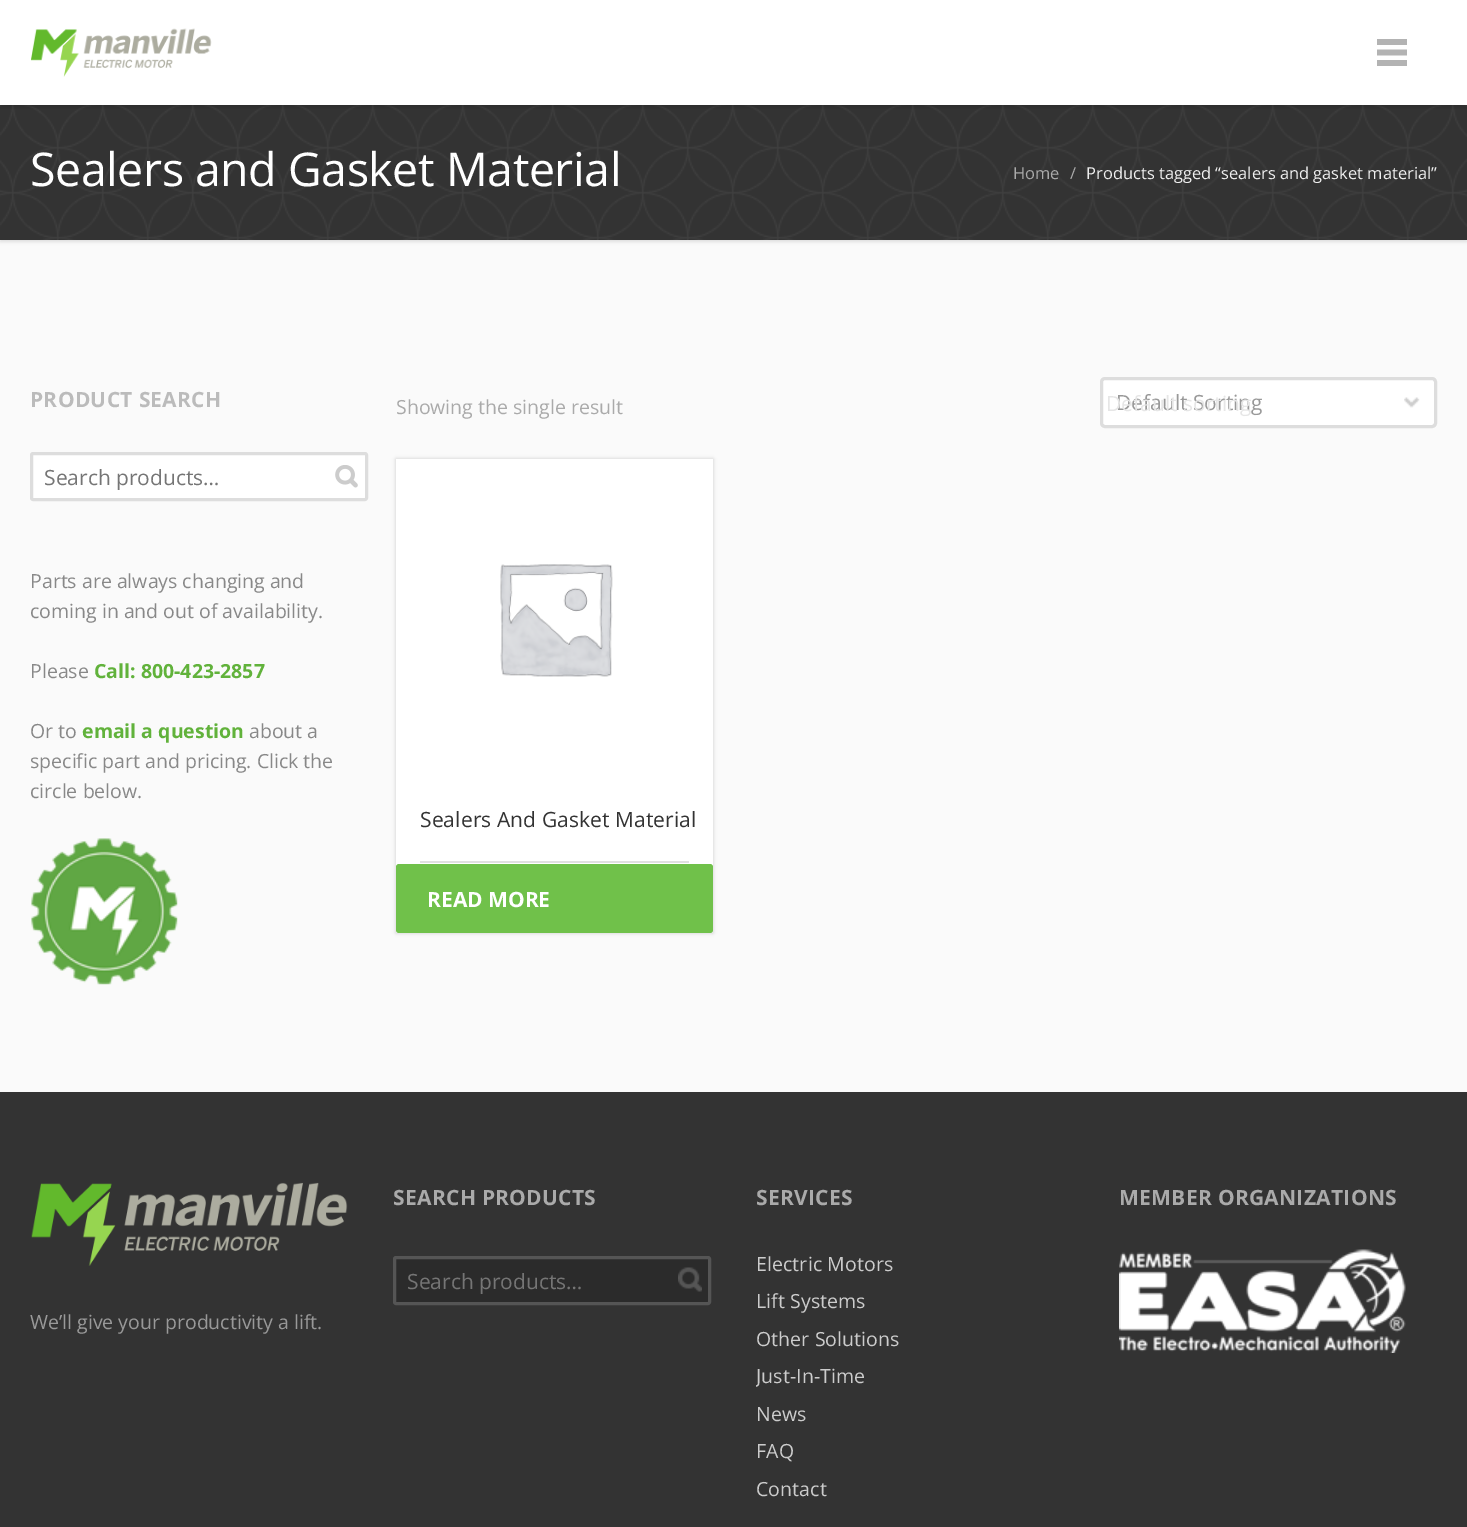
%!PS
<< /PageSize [1467 1527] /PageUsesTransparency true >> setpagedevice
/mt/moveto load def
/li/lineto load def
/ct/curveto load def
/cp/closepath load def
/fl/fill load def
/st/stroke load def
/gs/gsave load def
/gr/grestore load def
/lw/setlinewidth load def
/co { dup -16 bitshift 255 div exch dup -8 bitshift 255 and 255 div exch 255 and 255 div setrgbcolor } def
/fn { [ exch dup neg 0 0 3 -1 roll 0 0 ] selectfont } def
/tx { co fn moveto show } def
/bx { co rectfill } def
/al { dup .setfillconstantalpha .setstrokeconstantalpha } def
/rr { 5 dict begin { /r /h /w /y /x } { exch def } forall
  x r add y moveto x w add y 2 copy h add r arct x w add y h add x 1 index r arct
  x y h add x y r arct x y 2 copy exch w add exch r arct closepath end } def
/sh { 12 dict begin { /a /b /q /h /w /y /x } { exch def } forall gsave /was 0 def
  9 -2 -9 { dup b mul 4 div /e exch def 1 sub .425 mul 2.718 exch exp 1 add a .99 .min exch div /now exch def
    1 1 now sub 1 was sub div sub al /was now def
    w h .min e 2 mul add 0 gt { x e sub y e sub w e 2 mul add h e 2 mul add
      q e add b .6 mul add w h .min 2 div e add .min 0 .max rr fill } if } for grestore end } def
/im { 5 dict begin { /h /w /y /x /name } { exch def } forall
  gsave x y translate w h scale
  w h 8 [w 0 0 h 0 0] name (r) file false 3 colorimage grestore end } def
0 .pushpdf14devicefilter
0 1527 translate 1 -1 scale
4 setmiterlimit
0 0 1467 1527 16#FAFAFA bx
16#000000 co
0 107 1467 135 0 1.5 .1 sh
0 105 1467 135 16#333333 bx
(media/3.raw) 0 105 1467 135 im
16#000000 co
0 2 1467 105 0 2 .14 sh
0 0 1467 105 16#FFFFFF bx
(media/1.raw) 31 28 181 49 im
(media/2.raw) 1377 39 30 27 im
31.5 453.5 335 46 1.5 rr gs fl gr
16#DDDDDD co
3 lw
st
(media/4.raw) 335 465 23 23 im
(media/5.raw) 31 838 147 147 im
16#FFFFFF co
1101.5 378.5 334 48 3.5 rr gs fl gr
16#DDDDDD co
st
(media/6.raw) 1404 397 16 11 im
16#CCCCCC co
396 459 317 474 0 2 1 sh
396 459 317 474 16#FFFFFF bx
(media/7.raw) 500 564 113 113 im
420 861 269 2 16#E0E0E0 bx
gs
396 459 317 474 rectclip
16#EBEBEB co
396 930 mt 396 933 li 396 935 397 936 399 936 ct 710 936 li 712 936 713 935 713 933 ct 713 870 li 712 868 li 712 930 li 712 932 711 933 710 933 ct 399 933 li 397 933 396 932 396 930 ct cp fl
gr
16#70C14A co
396 864 317 69 3 rr fl
0 1092 1467 435 16#333333 bx
16#2B2B2B co
394.5 1257.5 315 46 1.5 rr gs fl gr
16#555555 co
st
(media/8.raw) 678 1267 24 25 im
(media/9.raw) 1119 1249 287 104 im
(media/10.raw) 31 1182 317 84 im
/OpenSans-Regular 46.5 fn
16#FFFFFF co
30 186 mt -.45 0 (Sealers and Gasket Material) ashow
(Home) 1013 179 /OpenSans-Regular 16.5 16#AAAAAA tx
(/) 1070 179 /OpenSans-Regular 16.5 16#AAAAAA tx
(Products tagged “sealers and gasket material”) 1086 179 /OpenSans-Regular 16.5 16#EEEEEE tx
/OpenSans-Bold 21 fn
16#BBBBBB co
30 407 mt .3 0 (PRODUCT SEARCH) ashow
(Search products…) 44 485 /OpenSans-Regular 21 16#757575 tx
(Parts are always changing and) 30 588 /OpenSans-Regular 19.5 16#888888 tx
(coming in and out of availability.) 30 618 /OpenSans-Regular 19.5 16#888888 tx
(Please) 30 678 /OpenSans-Regular 19.5 16#888888 tx
(Call: 800-423-2857) 94 678 /OpenSans-Bold 19.5 16#61B23B tx
(Or to) 30 738 /OpenSans-Regular 19.5 16#888888 tx
(email a question) 82 738 /OpenSans-Bold 19.5 16#61B23B tx
(about a) 249 738 /OpenSans-Regular 19.5 16#888888 tx
(specific part and pricing. Click the) 30 768 /OpenSans-Regular 19.5 16#888888 tx
(circle below.) 30 798 /OpenSans-Regular 19.5 16#888888 tx
(Showing the single result) 396 414 /OpenSans-Regular 19.5 16#AAAAAA tx
(Default Sorting) 1116 410 /OpenSans-Regular 21 16#999999 tx
(Default sorting) 1106 411 /OpenSans-Regular 21 16#E6E6E6 tx
16#333333 co
420 827 mt .1 0 (Sealers And Gasket Material) ashow
(READ MORE) 427 907 /OpenSans-Bold 21 16#FFFFFF tx
16#AAAAAA co
393 1205 mt .3 0 (SEARCH PRODUCTS) ashow
(Search products…) 407 1289 /OpenSans-Regular 21 16#757575 tx
/OpenSans-Bold 21 fn
16#AAAAAA co
756 1205 mt .3 0 (SERVICES) ashow
/OpenSans-Regular 19.5 fn
16#CCCCCC co
756 1271 mt .1 0 (Electric Motors) ashow
756 1308 mt .1 0 (Lift Systems) ashow
756 1346 mt .1 0 (Other Solutions) ashow
gs
756 1362 318 27 rectclip
756 1383 mt .1 0 (Just-In-Time) ashow
gr
756 1421 mt .1 0 (News) ashow
756 1458 mt .1 0 (FAQ) ashow
756 1496 mt .1 0 (Contact) ashow
/OpenSans-Bold 21 fn
16#AAAAAA co
1119 1205 mt .3 0 (MEMBER ORGANIZATIONS) ashow
(We’ll give your productivity a lift.) 30 1329 /OpenSans-Regular 19.5 16#999999 tx
.poppdf14devicefilter showpage
